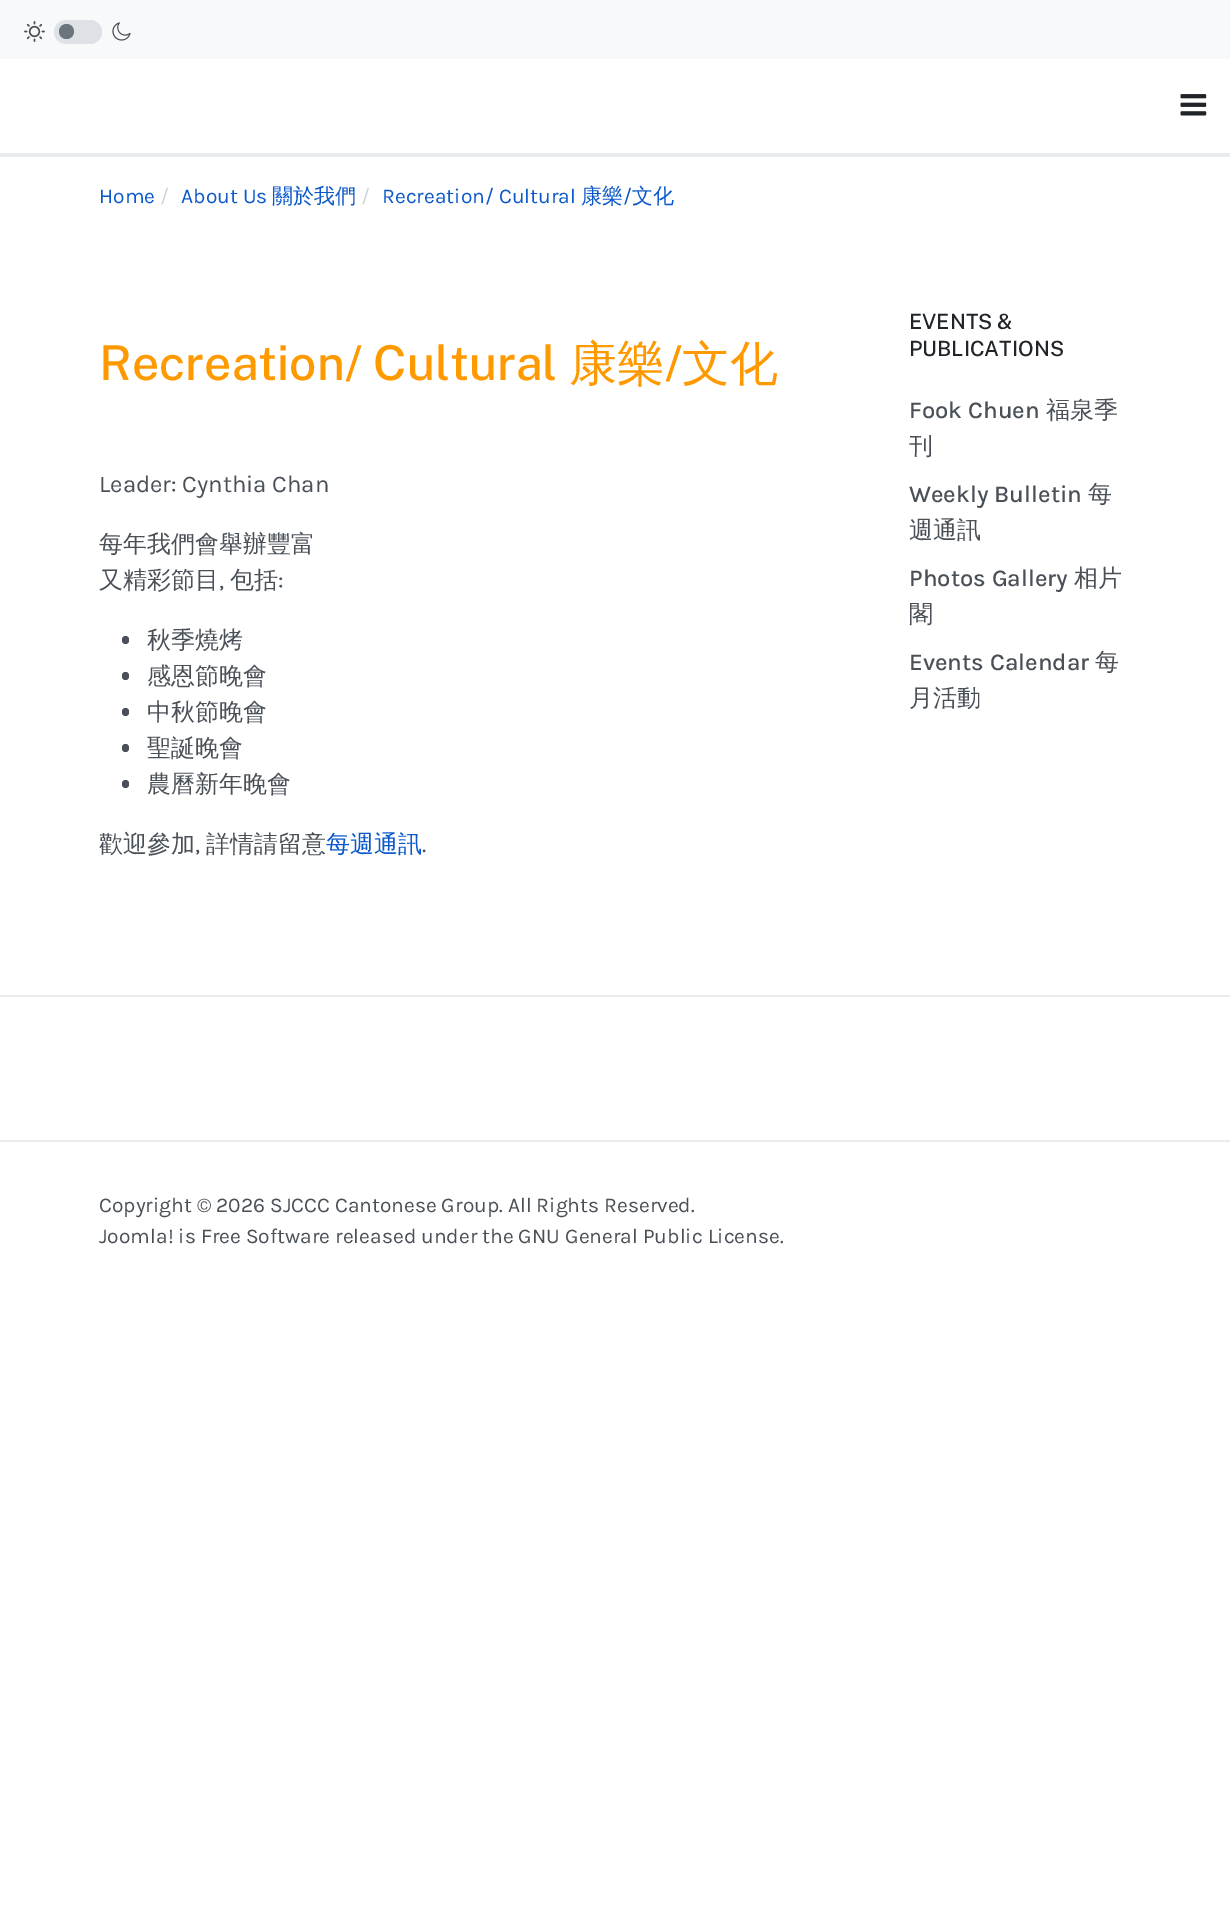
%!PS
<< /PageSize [1230 1905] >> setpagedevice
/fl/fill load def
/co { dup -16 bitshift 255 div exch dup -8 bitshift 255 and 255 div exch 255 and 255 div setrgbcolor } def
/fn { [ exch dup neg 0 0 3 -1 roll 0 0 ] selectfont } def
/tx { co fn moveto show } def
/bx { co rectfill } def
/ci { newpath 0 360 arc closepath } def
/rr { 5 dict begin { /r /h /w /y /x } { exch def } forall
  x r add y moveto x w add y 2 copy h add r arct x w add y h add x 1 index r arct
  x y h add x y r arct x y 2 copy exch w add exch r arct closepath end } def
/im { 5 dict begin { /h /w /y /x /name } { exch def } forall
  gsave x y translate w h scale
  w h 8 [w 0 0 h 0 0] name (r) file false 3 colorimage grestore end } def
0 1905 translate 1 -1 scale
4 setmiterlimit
0 0 1230 1905 16#FFFFFF bx
0 0 1230 59 16#F8F9FA bx
(media/1.raw) 24 21 21 21 im
16#DEE2E6 co
54 20 48 24 12 rr fl
16#6C757D co
66.5 31.5 7.5 ci fl
(media/2.raw) 112 22 19 19 im
(media/3.raw) 1180 94 27 22 im
0 153 1230 4 16#E9ECEF bx
16#495057 co
122 636 7 8 3.5 rr fl
122 672 7 8 3.5 rr fl
122 708 7 8 3.5 rr fl
122 744 7 8 3.5 rr fl
122 780 7 8 3.5 rr fl
0 995 1230 2 16#E9ECEF bx
0 1140 1230 2 16#E9ECEF bx
(Home) 99 203 /Karla-Regular 21 16#0A58CA tx
(/) 160 203 /Karla-Regular 21 16#CED4DA tx
(About Us) 181 203 /Karla-Regular 21 16#0A58CA tx
(關於我們) 272 203 /WenQuanYiZenHei-Medium 21 16#0A58CA tx
(/) 361 203 /Karla-Regular 21 16#CED4DA tx
(Recreation/ Cultural) 382 203 /Karla-Regular 21 16#0A58CA tx
(康樂) 581 203 /WenQuanYiZenHei-Medium 21 16#0A58CA tx
(/) 623 203 /Karla-Regular 21 16#0A58CA tx
(文化) 632 203 /WenQuanYiZenHei-Medium 21 16#0A58CA tx
(Recreation/ Cultural) 99 380 /PublicSans-Medium 48 16#FF9900 tx
(康樂) 569 380 /WenQuanYiZenHei-Medium 48 16#FF9900 tx
(/) 665 380 /PublicSans-Medium 48 16#FF9900 tx
(文化) 682 380 /WenQuanYiZenHei-Medium 48 16#FF9900 tx
(Leader: Cynthia Chan) 99 492 /Karla-Regular 24 16#495057 tx
(每年我們會舉辦豐富) 99 552 /WenQuanYiZenHei-Medium 24 16#495057 tx
(又精彩節目) 99 588 /WenQuanYiZenHei-Medium 24 16#495057 tx
(,) 219 588 /Karla-Regular 24 16#495057 tx
(包括) 230 588 /WenQuanYiZenHei-Medium 24 16#495057 tx
(:) 278 588 /Karla-Regular 24 16#495057 tx
(秋季燒烤) 147 648 /WenQuanYiZenHei-Medium 24 16#495057 tx
(感恩節晚會) 147 684 /WenQuanYiZenHei-Medium 24 16#495057 tx
(中秋節晚會) 147 720 /WenQuanYiZenHei-Medium 24 16#495057 tx
(聖誕晚會) 147 756 /WenQuanYiZenHei-Medium 24 16#495057 tx
(農曆新年晚會) 147 792 /WenQuanYiZenHei-Medium 24 16#495057 tx
(歡迎參加) 99 852 /WenQuanYiZenHei-Medium 24 16#495057 tx
(,) 195 852 /Karla-Regular 24 16#495057 tx
(詳情請留意) 206 852 /WenQuanYiZenHei-Medium 24 16#495057 tx
(每週通訊) 326 852 /WenQuanYiZenHei-Medium 24 16#0A58CA tx
(.) 422 852 /Karla-Regular 24 16#495057 tx
(EVENTS &) 909 329 /PublicSans-Medium 21 16#212529 tx
(PUBLICATIONS) 909 356 /PublicSans-Medium 21 16#212529 tx
(Fook Chuen) 909 418 /Karla-Medium 24 16#495057 tx
(福泉季) 1046 418 /WenQuanYiZenHei-Medium 24 16#495057 tx
(刊) 909 454 /WenQuanYiZenHei-Medium 24 16#495057 tx
(Weekly Bulletin) 909 502 /Karla-Medium 24 16#495057 tx
(每) 1088 502 /WenQuanYiZenHei-Medium 24 16#495057 tx
(週通訊) 909 538 /WenQuanYiZenHei-Medium 24 16#495057 tx
(Photos Gallery) 909 586 /Karla-Medium 24 16#495057 tx
(相片) 1074 586 /WenQuanYiZenHei-Medium 24 16#495057 tx
(閣) 909 622 /WenQuanYiZenHei-Medium 24 16#495057 tx
(Events Calendar) 909 670 /Karla-Medium 24 16#495057 tx
(每) 1095 670 /WenQuanYiZenHei-Medium 24 16#495057 tx
(月活動) 909 706 /WenQuanYiZenHei-Medium 24 16#495057 tx
(Copyright © 2026 SJCCC Cantonese Group. All Rights Reserved.) 99 1212 /Karla-Regular 21 16#495057 tx
(Joomla! is Free Software released under the GNU General Public License.) 99 1243 /Karla-Regular 21 16#495057 tx
showpage
